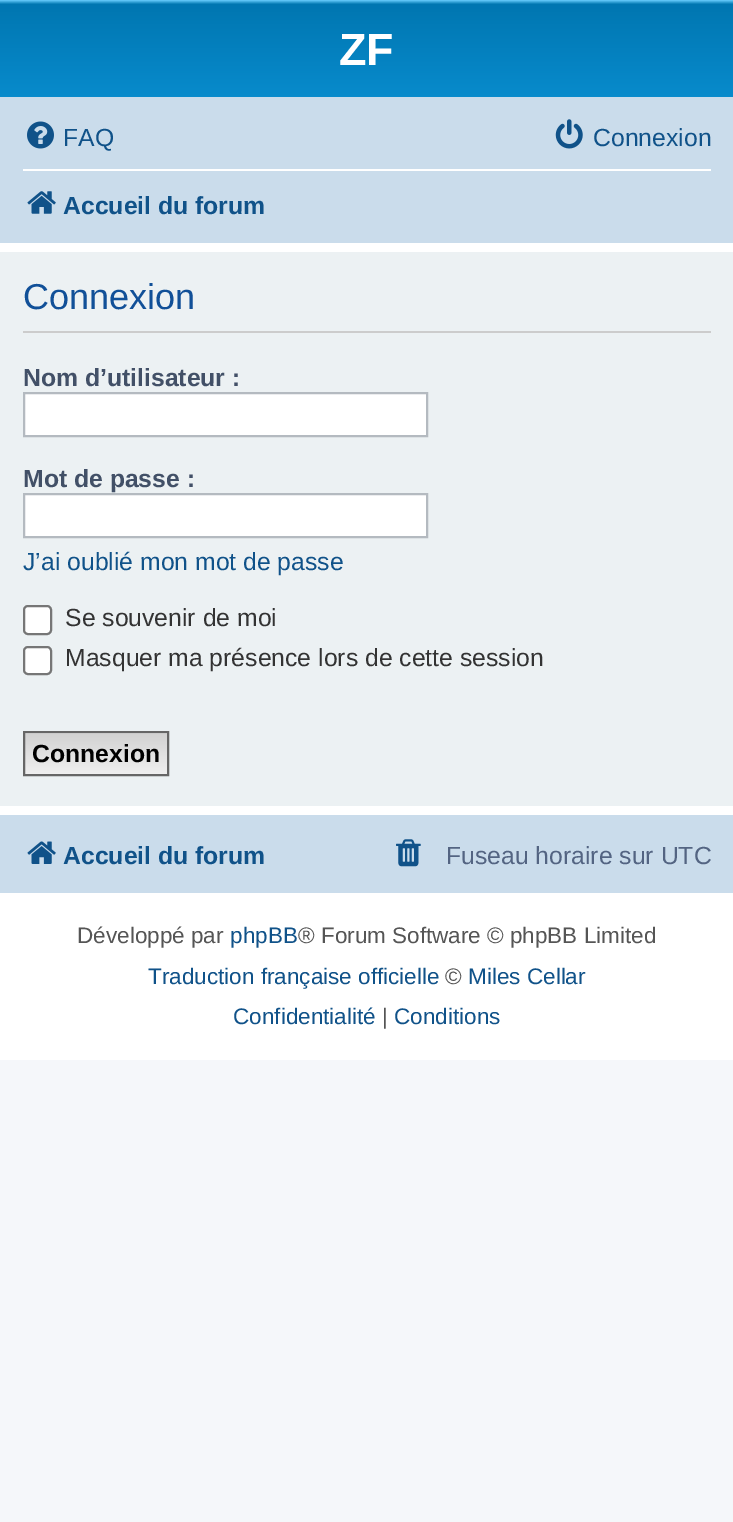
%!PS
<< /PageSize [733 1522] >> setpagedevice
/mt/moveto load def
/li/lineto load def
/cp/closepath load def
/fl/fill load def
/st/stroke load def
/gs/gsave load def
/gr/grestore load def
/lw/setlinewidth load def
/co { dup -16 bitshift 255 div exch dup -8 bitshift 255 and 255 div exch 255 and 255 div setrgbcolor } def
/fn { [ exch dup neg 0 0 3 -1 roll 0 0 ] selectfont } def
/tx { co fn moveto show } def
/bx { co rectfill } def
/rr { 5 dict begin { /r /h /w /y /x } { exch def } forall
  x r add y moveto x w add y 2 copy h add r arct x w add y h add x 1 index r arct
  x y h add x y r arct x y 2 copy exch w add exch r arct closepath end } def
/im { 5 dict begin { /h /w /y /x /name } { exch def } forall
  gsave x y translate w h scale
  w h 8 [w 0 0 h 0 0] name (r) file false 3 colorimage grestore end } def
0 1522 translate 1 -1 scale
4 setmiterlimit
0 0 733 1522 16#F5F7FA bx
0 243 733 817 16#FFFFFF bx
gs 0 0 mt 733 0 li 733 97 li 0 97 li cp clip newpath
<< /ShadingType 2 /ColorSpace /DeviceRGB /Coords [367 0 367 207] /Extend [true true] /Function << /FunctionType 3 /Domain [0 1] /Functions [<< /FunctionType 2 /Domain [0 1] /C0 [.416 .808 1] /C1 [0 .463 .694] /N 1 >> << /FunctionType 2 /Domain [0 1] /C0 [0 .463 .694] /C1 [.071 .639 .922] /N 1 >>] /Bounds [.02] /Encode [0 1 0 1] >> >> shfill gr
0 97 733 146 16#CADCEB bx
(media/1.raw) 27 121 27 28 im
(media/2.raw) 555 119 28 30 im
23 169 688 2 16#FFFFFF bx
(media/3.raw) 27 191 29 23 im
0 252 733 554 16#ECF1F3 bx
23 331 688 2 16#CCCCCC bx
16#FFFFFF co
24 393 mt 427 393 li 427 436 li 24 436 li cp gs fl gr
16#B4BAC0 co
2 lw
st
16#FFFFFF co
24 494 mt 427 494 li 427 537 li 24 537 li cp gs fl gr
16#B4BAC0 co
st
16#FFFFFF co
24 606 27 28 4 rr gs fl gr
16#767676 co
st
16#FFFFFF co
24 647 27 27 4 rr gs fl gr
16#767676 co
st
25 733 142 1 16#EFEFEF bx
gs 25 734 mt 167 734 li 167 774 li 25 774 li cp clip newpath
<< /ShadingType 2 /ColorSpace /DeviceRGB /Coords [96 734 96 774] /Extend [true true] /Function << /FunctionType 2 /Domain [0 1] /C0 [.824 .824 .824] /C1 [.937 .937 .937] /N 1 >> >> shfill gr
16#666666 co
24 732 144 43 rectstroke
0 815 733 78 16#CADCEB bx
(media/4.raw) 27 841 29 23 im
(media/5.raw) 396 839 25 28 im
(ZF) 339 65 /LiberationSans-Bold 45 16#FFFFFF tx
(FAQ) 63 146 /LiberationSans-Regular 24.75 16#105289 tx
(Connexion) 593 146 /LiberationSans-Regular 24.75 16#105289 tx
(Accueil du forum) 63 214 /LiberationSans-Bold 24.75 16#105289 tx
(Connexion) 23 309 /LiberationSans-Regular 36 16#115098 tx
(Nom d’utilisateur :) 23 386 /LiberationSans-Bold 24.75 16#425067 tx
(Mot de passe :) 23 487 /LiberationSans-Bold 24.75 16#425067 tx
(J’ai oublié mon mot de passe) 23 570 /LiberationSans-Regular 24.75 16#105289 tx
(Se souvenir de moi) 65 626 /LiberationSans-Regular 24.75 16#333333 tx
(Masquer ma présence lors de cette session) 65 666 /LiberationSans-Regular 24.75 16#333333 tx
(Connexion) 32 762 /LiberationSans-Bold 24.75 16#000000 tx
(Accueil du forum) 63 864 /LiberationSans-Bold 24.75 16#105289 tx
(Fuseau horaire sur UTC) 446 864 /LiberationSans-Regular 24.75 16#536482 tx
(Développé par) 77 943 /LiberationSans-Regular 22.5 16#555555 tx
(phpBB) 230 943 /LiberationSans-Regular 22.5 16#105289 tx
(® Forum Software © phpBB Limited) 298 943 /LiberationSans-Regular 22.5 16#555555 tx
(Traduction française officielle) 148 984 /LiberationSans-Regular 22.5 16#105289 tx
(©) 445 984 /LiberationSans-Regular 22.5 16#555555 tx
(Miles Cellar) 468 984 /LiberationSans-Regular 22.5 16#105289 tx
(Confidentialité) 233 1024 /LiberationSans-Regular 22.5 16#105289 tx
(|) 382 1024 /LiberationSans-Regular 22.5 16#555555 tx
(Conditions) 394 1024 /LiberationSans-Regular 22.5 16#105289 tx
showpage
